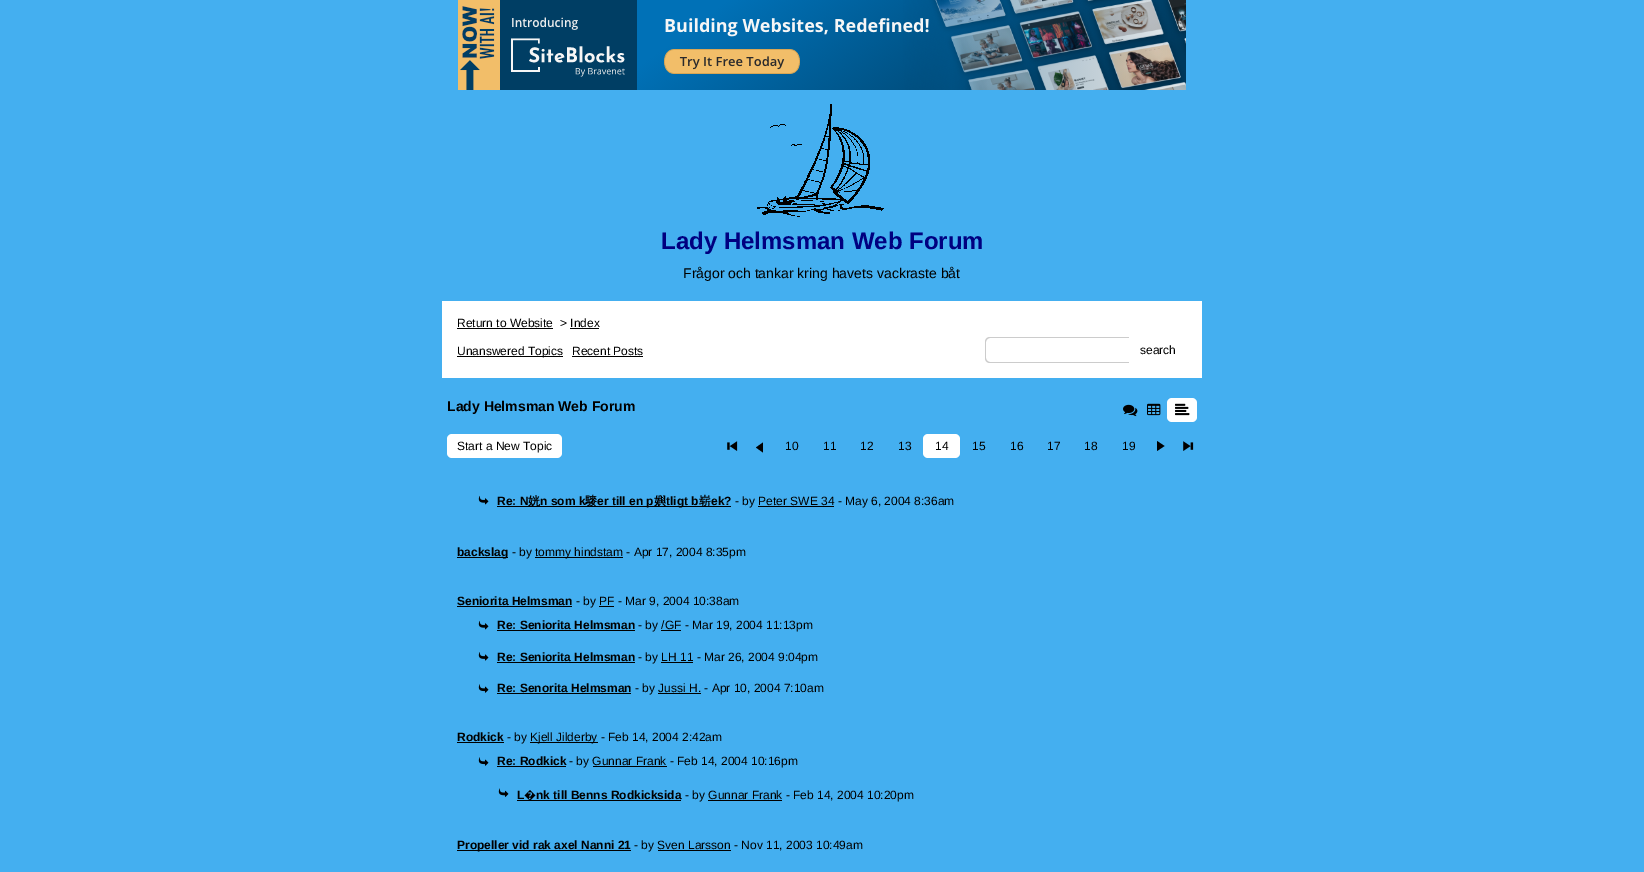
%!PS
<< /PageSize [1644 872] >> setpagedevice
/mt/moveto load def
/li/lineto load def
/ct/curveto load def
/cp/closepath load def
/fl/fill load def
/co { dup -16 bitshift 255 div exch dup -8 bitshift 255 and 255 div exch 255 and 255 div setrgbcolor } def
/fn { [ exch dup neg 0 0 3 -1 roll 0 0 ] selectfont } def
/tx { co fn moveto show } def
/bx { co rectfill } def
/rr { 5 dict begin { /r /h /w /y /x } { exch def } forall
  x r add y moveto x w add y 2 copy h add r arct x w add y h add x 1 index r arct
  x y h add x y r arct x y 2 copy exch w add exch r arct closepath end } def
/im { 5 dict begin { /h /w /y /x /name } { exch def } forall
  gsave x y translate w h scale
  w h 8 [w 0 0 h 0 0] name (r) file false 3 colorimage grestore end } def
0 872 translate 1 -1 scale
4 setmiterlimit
0 0 1644 872 16#44AFF0 bx
(media/1.raw) 458 0 728 90 im
(media/2.raw) 757 104 127 113 im
442 301 760 77 16#FFFFFF bx
457 328 96 1 16#000000 bx
570 328 29 1 16#000000 bx
457 356 106 1 16#000000 bx
572 356 71 1 16#000000 bx
16#CCCCCC co
990 337 mt 1172 337 li 1175 337 1177 339 1177 342 ct 1177 358 li 1177 361 1175 363 1172 363 ct 990 363 li 987 363 985 361 985 358 ct 985 342 li 985 339 987 337 990 337 ct cp 990 338 mt 1172 338 li 1175 338 1177 340 1177 342 ct 1177 358 li 1177 360 1175 362 1172 362 ct 990 362 li 988 362 986 360 986 358 ct 986 342 li 986 340 988 338 990 338 ct cp eofill
16#FFFFFF co
1129 337 mt 1182 337 li 1185 337 1187 339 1187 342 ct 1187 358 li 1187 361 1185 363 1182 363 ct 1129 363 li cp fl
(media/3.raw) 1123 404 15 13 im
(media/4.raw) 1147 403 14 13 im
1167 398 30 24 5 rr fl
(media/5.raw) 1175 403 15 13 im
447 434 115 24 5 rr fl
(media/6.raw) 727 441 11 10 im
16#000000 co
763 452.5 mt 756 447.5 li 763 442.5 li cp fl
16#FFFFFF co
923 434 37 24 5 rr fl
16#000000 co
1157 441 mt 1164.5 446 li 1157 451 li cp fl
(media/7.raw) 1183 441 11 10 im
(media/8.raw) 478 495 11 10 im
497 506 234 1 16#000000 bx
758 506 76 1 16#000000 bx
457 557 51 1 16#000000 bx
535 557 88 1 16#000000 bx
457 606 115 1 16#000000 bx
599 606 15 1 16#000000 bx
(media/8.raw) 478 620 11 10 im
497 630 138 1 16#000000 bx
661 630 20 1 16#000000 bx
(media/9.raw) 478 652 11 9 im
497 662 138 1 16#000000 bx
661 662 32 1 16#000000 bx
(media/10.raw) 478 684 11 9 im
497 693 134 1 16#000000 bx
658 693 43 1 16#000000 bx
457 742 47 1 16#000000 bx
530 742 68 1 16#000000 bx
(media/10.raw) 478 757 11 9 im
497 766 69 1 16#000000 bx
593 766 74 1 16#000000 bx
(media/11.raw) 498 788 11 9 im
517 800 164 1 16#000000 bx
708 800 74 1 16#000000 bx
457 850 174 1 16#000000 bx
658 850 73 1 16#000000 bx
(Lady Helmsman Web Forum) 661 249 /LiberationSans-Bold 24 16#000080 tx
(Frågor och tankar kring havets vackraste båt) 683 278 /LiberationSans-Regular 14 16#000000 tx
(Return to Website) 457 327 /LiberationSans-Regular 12 16#000000 tx
(> Index) 560 327 /LiberationSans-Regular 12 16#000000 tx
(Unanswered Topics) 457 355 /LiberationSans-Regular 12 16#000000 tx
(Recent Posts) 572 355 /LiberationSans-Regular 12 16#000000 tx
(search) 1140 354 /LiberationSans-Regular 12 16#000000 tx
(Lady Helmsman Web Forum) 447 411 /LiberationSans-Bold 14 16#000000 tx
(Start a New Topic) 457 450 /LiberationSans-Regular 12 16#000000 tx
(10) 785 450 /LiberationSans-Regular 12 16#000000 tx
(11) 823 450 /LiberationSans-Regular 12 16#000000 tx
(12) 860 450 /LiberationSans-Regular 12 16#000000 tx
(13) 898 450 /LiberationSans-Regular 12 16#000000 tx
(14) 935 450 /LiberationSans-Regular 12 16#000000 tx
(15) 972 450 /LiberationSans-Regular 12 16#000000 tx
(16) 1010 450 /LiberationSans-Regular 12 16#000000 tx
(17) 1047 450 /LiberationSans-Regular 12 16#000000 tx
(18) 1084 450 /LiberationSans-Regular 12 16#000000 tx
(19) 1122 450 /LiberationSans-Regular 12 16#000000 tx
(Re: N) 497 505 /LiberationSans-Bold 12 16#000000 tx
(姯) 528 505 /WenQuanYiZenHei-Bold 12 16#000000 tx
(n som k) 540 505 /LiberationSans-Bold 12 16#000000 tx
(䮮) 585 505 /WenQuanYiZenHei-Bold 12 16#000000 tx
(er till en p) 597 505 /LiberationSans-Bold 12 16#000000 tx
(嬩) 654 505 /WenQuanYiZenHei-Bold 12 16#000000 tx
(tligt b) 666 505 /LiberationSans-Bold 12 16#000000 tx
(崭) 699 505 /WenQuanYiZenHei-Bold 12 16#000000 tx
(ek?) 711 505 /LiberationSans-Bold 12 16#000000 tx
(- by Peter SWE 34 - May 6, 2004 8:36am) 735 505 /LiberationSans-Regular 12 16#000000 tx
(backslag) 457 556 /LiberationSans-Bold 12 16#000000 tx
(- by) 512 556 /LiberationSans-Regular 12 16#000000 tx
(tommy hindstam - Apr 17, 2004 8:35pm) 535 556 /LiberationSans-Regular 12 16#000000 tx
(Seniorita Helmsman) 457 605 /LiberationSans-Bold 12 16#000000 tx
(- by PF - Mar 9, 2004 10:38am) 576 605 /LiberationSans-Regular 12 16#000000 tx
(Re: Seniorita Helmsman) 497 629 /LiberationSans-Bold 12 16#000000 tx
(- by /GF - Mar 19, 2004 11:13pm) 638 629 /LiberationSans-Regular 12 16#000000 tx
(Re: Seniorita Helmsman) 497 661 /LiberationSans-Bold 12 16#000000 tx
(- by LH 11 - Mar 26, 2004 9:04pm) 638 661 /LiberationSans-Regular 12 16#000000 tx
(Re: Senorita Helmsman) 497 692 /LiberationSans-Bold 12 16#000000 tx
(- by Jussi H. - Apr 10, 2004 7:10am) 635 692 /LiberationSans-Regular 12 16#000000 tx
(Rodkick) 457 741 /LiberationSans-Bold 12 16#000000 tx
(- by) 507 741 /LiberationSans-Regular 12 16#000000 tx
(Kjell Jilderby - Feb 14, 2004 2:42am) 530 741 /LiberationSans-Regular 12 16#000000 tx
(Re: Rodkick) 497 765 /LiberationSans-Bold 12 16#000000 tx
(- by Gunnar Frank - Feb 14, 2004 10:16pm) 569 765 /LiberationSans-Regular 12 16#000000 tx
(L) 517 799 /LiberationSans-Bold 12 16#000000 tx
(�) 524 799 /NotoSans-Bold 12 16#000000 tx
(nk till Benns Rodkicksida) 536 799 /LiberationSans-Bold 12 16#000000 tx
(- by Gunnar Frank - Feb 14, 2004 10:20pm) 685 799 /LiberationSans-Regular 12 16#000000 tx
(Propeller vid rak axel Nanni 21) 457 849 /LiberationSans-Bold 12 16#000000 tx
(- by Sven Larsson - Nov 11, 2003 10:49am) 634 849 /LiberationSans-Regular 12 16#000000 tx
showpage
